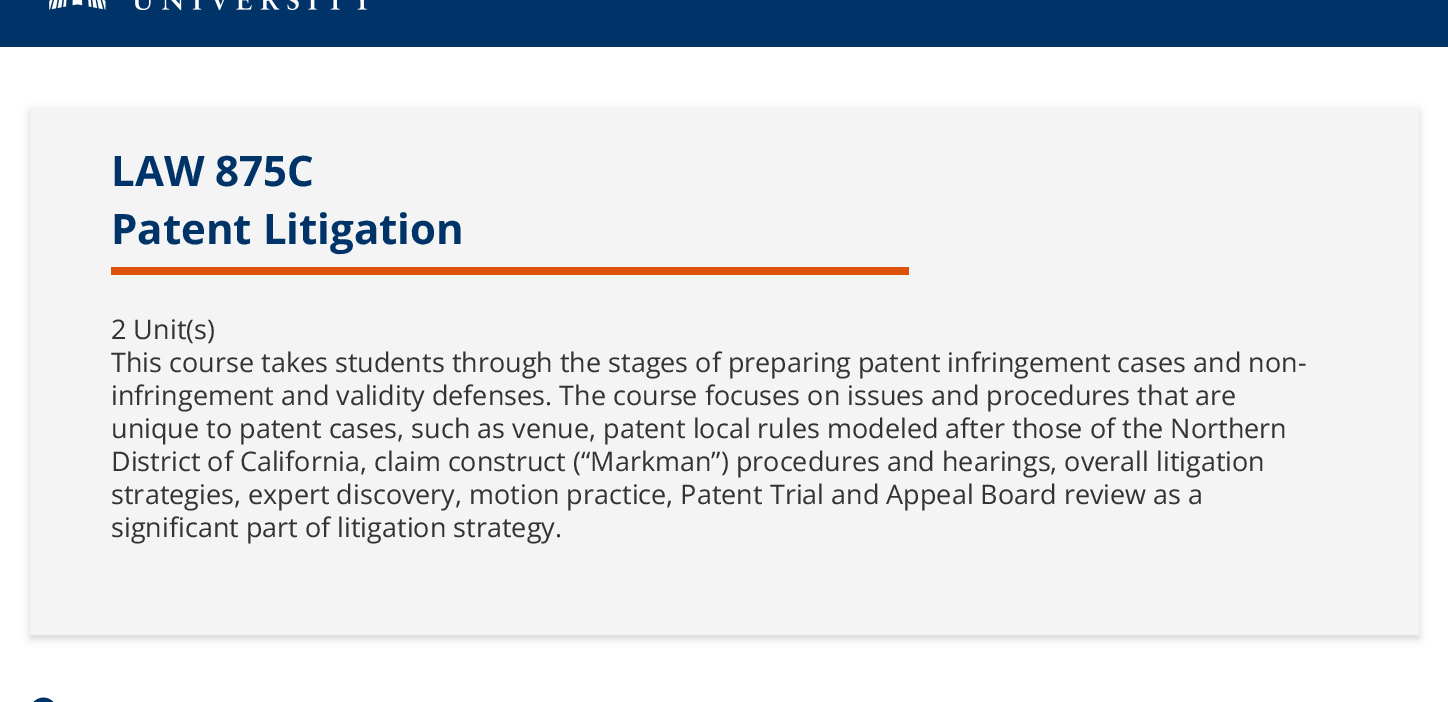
%!PS
<< /PageSize [1448 702] /PageUsesTransparency true >> setpagedevice
/co { dup -16 bitshift 255 div exch dup -8 bitshift 255 and 255 div exch 255 and 255 div setrgbcolor } def
/fn { [ exch dup neg 0 0 3 -1 roll 0 0 ] selectfont } def
/tx { co fn moveto show } def
/bx { co rectfill } def
/al { dup .setfillconstantalpha .setstrokeconstantalpha } def
/rr { 5 dict begin { /r /h /w /y /x } { exch def } forall
  x r add y moveto x w add y 2 copy h add r arct x w add y h add x 1 index r arct
  x y h add x y r arct x y 2 copy exch w add exch r arct closepath end } def
/sh { 12 dict begin { /a /b /q /h /w /y /x } { exch def } forall gsave /was 0 def
  9 -2 -9 { dup b mul 4 div /e exch def 1 sub .425 mul 2.718 exch exp 1 add a .99 .min exch div /now exch def
    1 1 now sub 1 was sub div sub al /was now def
    w h .min e 2 mul add 0 gt { x e sub y e sub w e 2 mul add h e 2 mul add
      q e add b .6 mul add w h .min 2 div e add .min 0 .max rr fill } if } for grestore end } def
/im { 5 dict begin { /h /w /y /x /name } { exch def } forall
  gsave x y translate w h scale
  w h 8 [w 0 0 h 0 0] name (r) file false 3 colorimage grestore end } def
0 .pushpdf14devicefilter
0 702 translate 1 -1 scale
4 setmiterlimit
0 0 1448 702 16#FFFFFF bx
0 0 1448 47 16#003468 bx
(media/1.raw) 49 0 318 11 im
16#000000 co
30 111 1389 528 0 4.5 .16 sh
30 107 1389 528 16#F4F4F4 bx
111 267 798 8 16#DC520A bx
(media/2.raw) 33 697 21 5 im
(LAW 875C) 111 186 /OpenSans-Bold 42 16#003468 tx
(Patent Litigation) 111 244 /OpenSans-Bold 42 16#003468 tx
(2 Unit\(s\)) 111 339 /OpenSans-Regular 27 16#333333 tx
(This course takes students through the stages of preparing patent infringement cases and non-) 111 372 /OpenSans-Regular 27 16#333333 tx
(infringement and validity defenses. The course focuses on issues and procedures that are) 111 405 /OpenSans-Regular 27 16#333333 tx
(unique to patent cases, such as venue, patent local rules modeled after those of the Northern) 111 438 /OpenSans-Regular 27 16#333333 tx
(District of California, claim construct \(“Markman”\) procedures and hearings, overall litigation) 111 471 /OpenSans-Regular 27 16#333333 tx
(strategies, expert discovery, motion practice, Patent Trial and Appeal Board review as a) 111 504 /OpenSans-Regular 27 16#333333 tx
(significant part of litigation strategy.) 111 537 /OpenSans-Regular 27 16#333333 tx
.poppdf14devicefilter showpage
